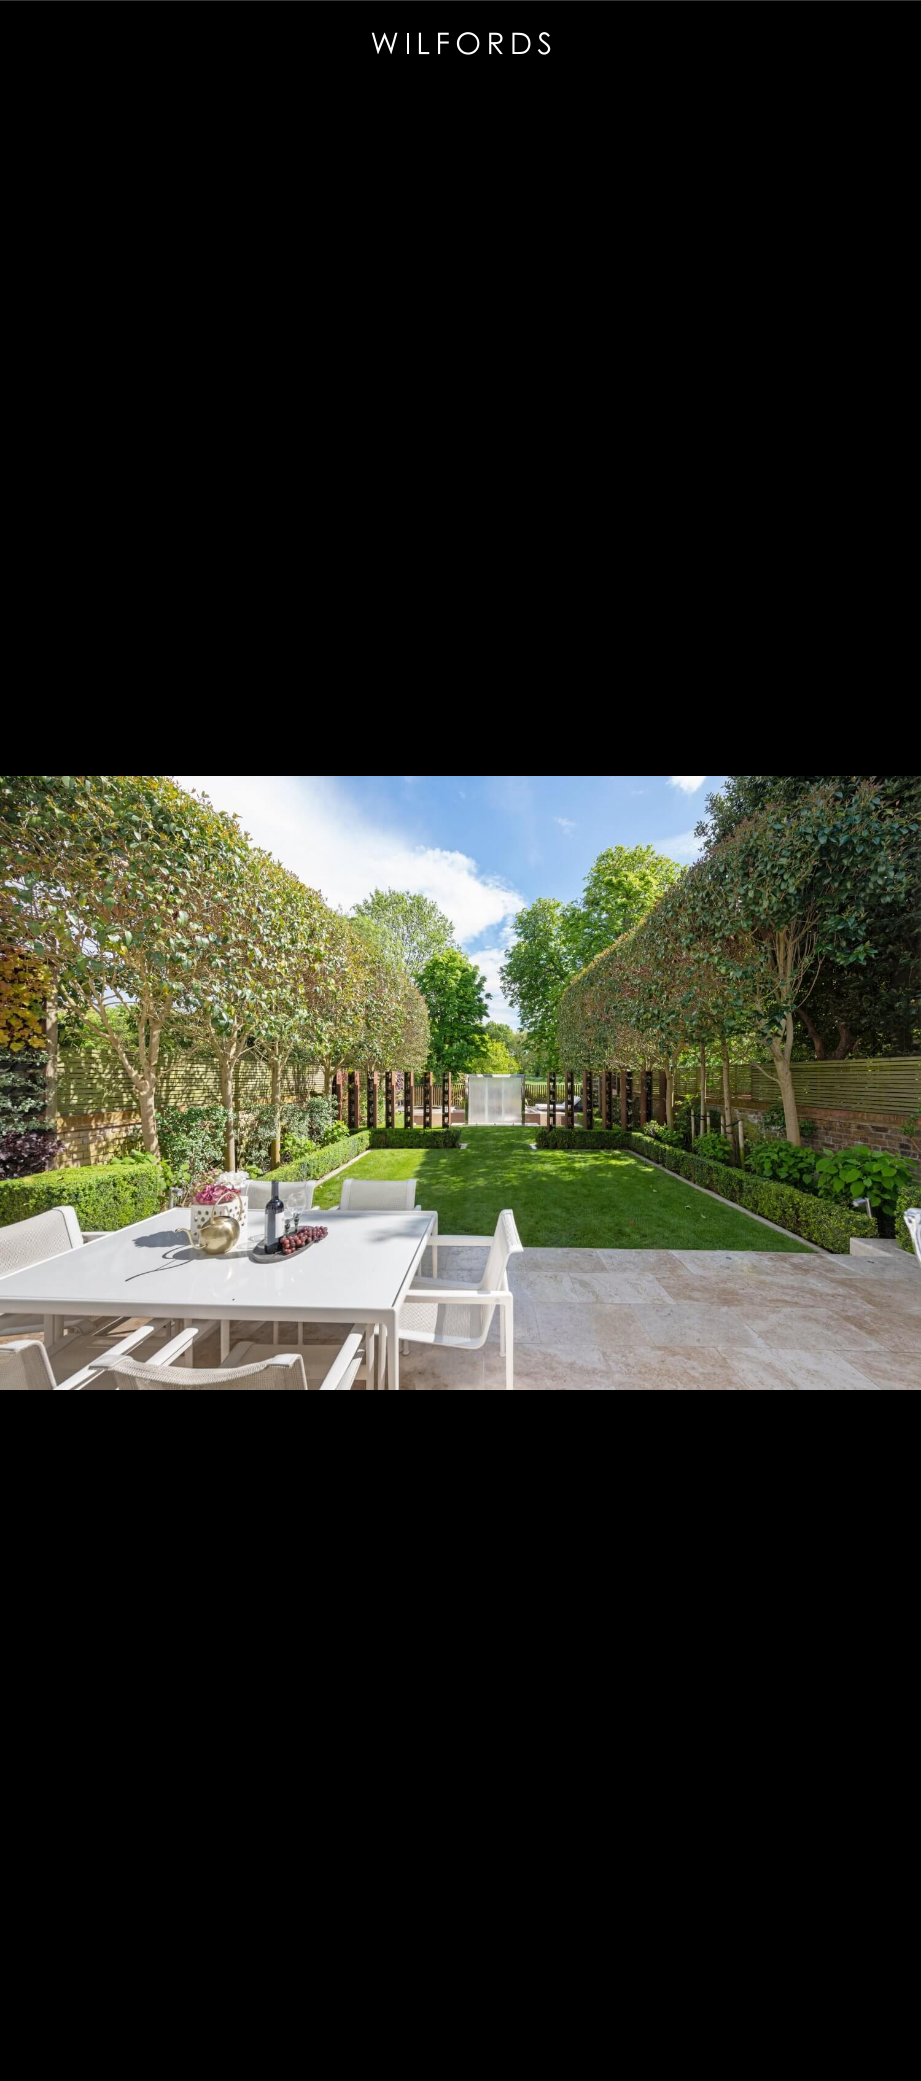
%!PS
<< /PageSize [921 2081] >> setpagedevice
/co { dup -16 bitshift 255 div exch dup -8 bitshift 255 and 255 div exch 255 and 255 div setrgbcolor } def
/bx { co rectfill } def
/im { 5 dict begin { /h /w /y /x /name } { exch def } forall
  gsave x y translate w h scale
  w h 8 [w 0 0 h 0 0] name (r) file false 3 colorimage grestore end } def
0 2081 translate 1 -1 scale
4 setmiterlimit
0 0 921 2081 16#000000 bx
0 0 921 1 16#333333 bx
(media/1.raw) 371 32 180 23 im
(media/2.raw) 0 776 921 614 im
showpage
